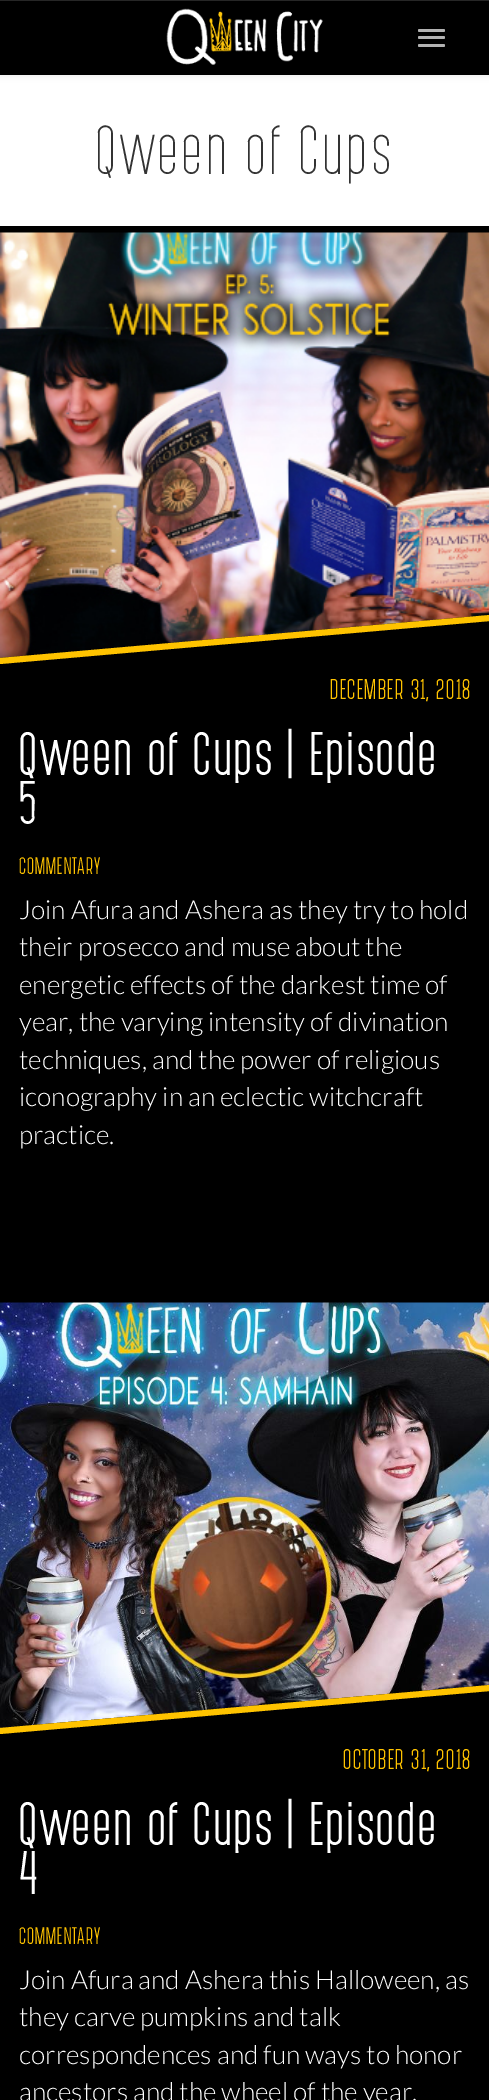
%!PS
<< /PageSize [489 2100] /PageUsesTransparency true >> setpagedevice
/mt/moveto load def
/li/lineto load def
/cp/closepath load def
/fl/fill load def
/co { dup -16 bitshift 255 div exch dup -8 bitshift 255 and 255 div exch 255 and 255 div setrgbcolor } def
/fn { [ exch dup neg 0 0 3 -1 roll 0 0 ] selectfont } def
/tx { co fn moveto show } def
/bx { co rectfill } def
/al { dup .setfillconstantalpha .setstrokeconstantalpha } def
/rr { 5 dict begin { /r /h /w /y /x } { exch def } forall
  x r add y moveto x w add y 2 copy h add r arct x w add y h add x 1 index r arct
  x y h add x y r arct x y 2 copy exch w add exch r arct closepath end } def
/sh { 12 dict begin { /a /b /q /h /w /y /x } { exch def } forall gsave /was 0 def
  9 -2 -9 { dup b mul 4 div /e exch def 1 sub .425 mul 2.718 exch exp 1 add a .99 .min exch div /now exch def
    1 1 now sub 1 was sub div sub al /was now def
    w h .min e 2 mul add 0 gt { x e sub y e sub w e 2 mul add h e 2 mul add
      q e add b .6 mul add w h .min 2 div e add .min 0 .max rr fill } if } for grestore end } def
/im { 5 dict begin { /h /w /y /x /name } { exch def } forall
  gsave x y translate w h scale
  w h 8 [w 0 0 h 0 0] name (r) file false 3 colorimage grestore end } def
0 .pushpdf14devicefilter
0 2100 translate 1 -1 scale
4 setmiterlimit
0 0 489 2100 16#FFFFFF bx
16#000000 co
0 1 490 75 0 3 .07 sh
0 1 489 74 16#000000 bx
0 0 489 1 16#262626 bx
(media/1.raw) 166 8 157 57 im
16#B2B2B2 co
418 29 27 3 1.5 rr fl
418 36 27 3 1.5 rr fl
418 44 27 3 1.5 rr fl
0 226 489 7 16#000000 bx
0 690 489 1410 16#000000 bx
(media/2.raw) 0 232 489 426 im
0 658 mt 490 615 li 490 690 li 0 733 li cp fl
16#FFC300 co
0 658 mt 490 615 li 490 621 li 0 664 li cp fl
(media/3.raw) 0 1302 489 426 im
16#000000 co
0 1728 mt 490 1685 li 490 1760 li 0 1803 li cp fl
16#FFC300 co
0 1728 mt 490 1685 li 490 1691 li 0 1734 li cp fl
(Qween of Cups) 96 174 /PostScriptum-Light 52.5 16#333333 tx
(DECEMBER 31, 2018) 330 699 /PostScriptum-Bold 21 16#FFC300 tx
(Qween of Cups | Episode) 19 775 /PostScriptum-Bold 45 16#FFFFFF tx
(5) 19 824 /PostScriptum-Bold 45 16#FFFFFF tx
(COMMENTARY) 19 874 /PostScriptum-Bold 17.5 16#FFC300 tx
(Join Afura and Ashera as they try to hold) 19 919 /Lato-Light 26.25 16#FFFFFF tx
(their prosecco and muse about the) 19 956 /Lato-Light 26.25 16#FFFFFF tx
(energetic effects of the darkest time of) 19 994 /Lato-Light 26.25 16#FFFFFF tx
(year, the varying intensity of divination) 19 1031 /Lato-Light 26.25 16#FFFFFF tx
(techniques, and the power of religious) 19 1069 /Lato-Light 26.25 16#FFFFFF tx
(iconography in an eclectic witchcraft) 19 1106 /Lato-Light 26.25 16#FFFFFF tx
(practice.) 19 1144 /Lato-Light 26.25 16#FFFFFF tx
(OCTOBER 31, 2018) 343 1769 /PostScriptum-Bold 21 16#FFC300 tx
(Qween of Cups | Episode) 19 1845 /PostScriptum-Bold 45 16#FFFFFF tx
(4) 19 1894 /PostScriptum-Bold 45 16#FFFFFF tx
(COMMENTARY) 19 1944 /PostScriptum-Bold 17.5 16#FFC300 tx
(Join Afura and Ashera this Halloween, as) 19 1989 /Lato-Light 26.25 16#FFFFFF tx
(they carve pumpkins and talk) 19 2026 /Lato-Light 26.25 16#FFFFFF tx
(correspondences and fun ways to honor) 19 2064 /Lato-Light 26.25 16#FFFFFF tx
(ancestors and the wheel of the year.) 19 2101 /Lato-Light 26.25 16#FFFFFF tx
.poppdf14devicefilter showpage
